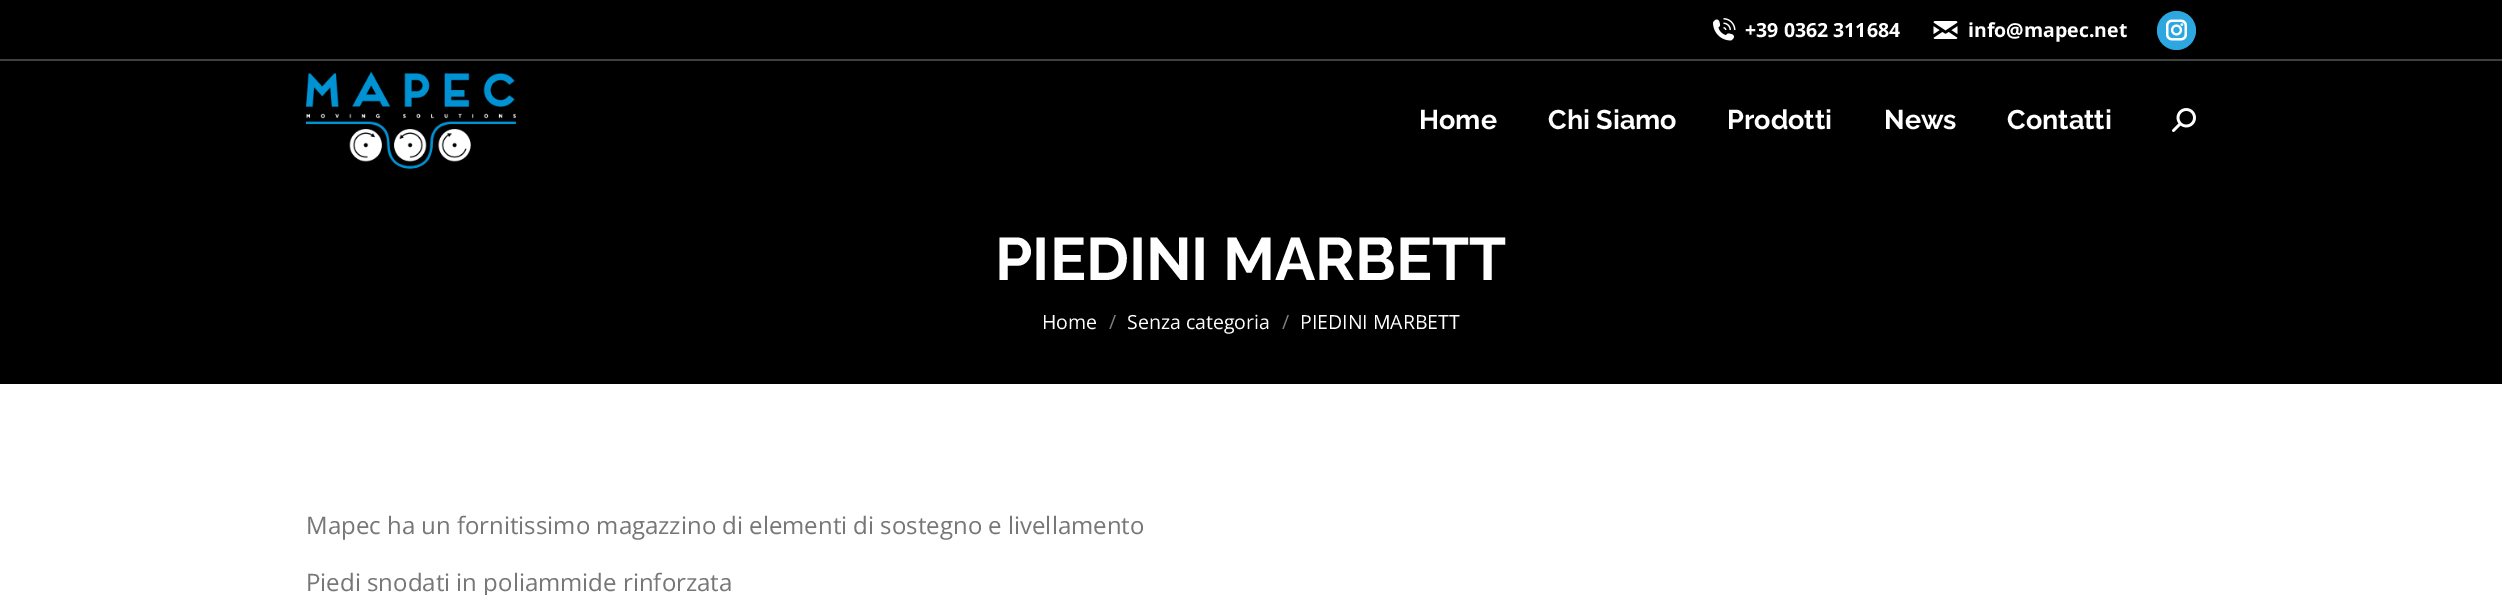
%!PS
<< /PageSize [2502 595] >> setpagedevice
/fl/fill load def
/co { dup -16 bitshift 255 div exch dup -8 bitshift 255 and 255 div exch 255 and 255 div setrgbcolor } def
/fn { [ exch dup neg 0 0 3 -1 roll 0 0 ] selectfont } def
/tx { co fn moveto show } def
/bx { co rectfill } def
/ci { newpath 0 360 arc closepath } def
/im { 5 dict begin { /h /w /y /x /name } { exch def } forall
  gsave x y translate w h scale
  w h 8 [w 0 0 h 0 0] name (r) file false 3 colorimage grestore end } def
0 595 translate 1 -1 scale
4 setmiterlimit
0 0 2502 595 16#FFFFFF bx
0 0 2502 384 16#000000 bx
(media/1.raw) 1713 18 23 23 im
(media/2.raw) 1933 21 25 18 im
16#2DA7E0 co
2176.5 30.5 19.5 ci fl
(media/3.raw) 2166 19 21 22 im
0 59 2502 2 16#404040 bx
(media/4.raw) 306 71 210 98 im
(media/5.raw) 2172 108 24 24 im
(+39 0362 311684) 1745 37 /OpenSans-Bold 19.5 16#FFFFFF tx
(info@mapec.net) 1968 37 /OpenSans-Bold 19.5 16#FFFFFF tx
(Home) 1419 129 /Raleway-Bold 27 16#FFFFFF tx
(Chi Siamo) 1548 129 /Raleway-Bold 27 16#FFFFFF tx
(Prodotti) 1727 129 /Raleway-Bold 27 16#FFFFFF tx
(News) 1884 129 /Raleway-Bold 27 16#FFFFFF tx
(Contatti) 2007 129 /Raleway-Bold 27 16#FFFFFF tx
(PIEDINI MARBETT) 995 280 /Raleway-Bold 60 16#FFFFFF tx
(Home) 1042 329 /OpenSans-Regular 19.5 16#FFFFFF tx
(/) 1109 329 /OpenSans-Regular 19.5 16#808080 tx
(Senza categoria) 1127 329 /OpenSans-Regular 19.5 16#FFFFFF tx
(/) 1282 329 /OpenSans-Regular 19.5 16#808080 tx
(PIEDINI MARBETT) 1300 329 /OpenSans-Regular 19.5 16#FFFFFF tx
(Mapec ha un fornitissimo magazzino di elementi di sostegno e livellamento) 306 534 /OpenSans-Regular 24 16#777777 tx
(Piedi snodati in poliammide rinforzata) 306 591 /OpenSans-Regular 24 16#777777 tx
showpage
